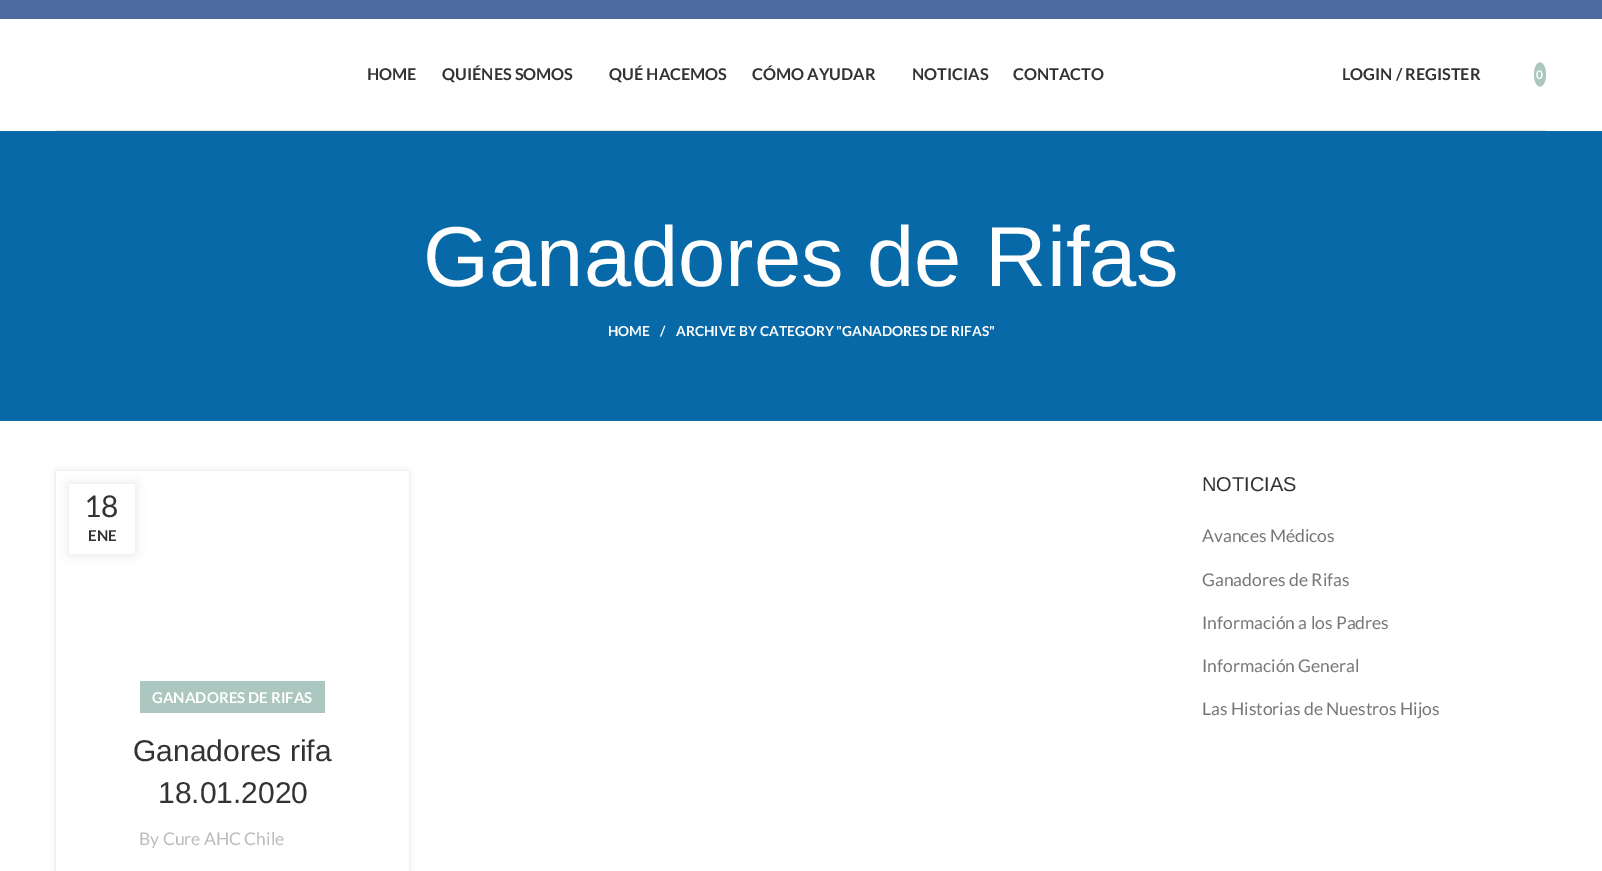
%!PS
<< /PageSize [1602 871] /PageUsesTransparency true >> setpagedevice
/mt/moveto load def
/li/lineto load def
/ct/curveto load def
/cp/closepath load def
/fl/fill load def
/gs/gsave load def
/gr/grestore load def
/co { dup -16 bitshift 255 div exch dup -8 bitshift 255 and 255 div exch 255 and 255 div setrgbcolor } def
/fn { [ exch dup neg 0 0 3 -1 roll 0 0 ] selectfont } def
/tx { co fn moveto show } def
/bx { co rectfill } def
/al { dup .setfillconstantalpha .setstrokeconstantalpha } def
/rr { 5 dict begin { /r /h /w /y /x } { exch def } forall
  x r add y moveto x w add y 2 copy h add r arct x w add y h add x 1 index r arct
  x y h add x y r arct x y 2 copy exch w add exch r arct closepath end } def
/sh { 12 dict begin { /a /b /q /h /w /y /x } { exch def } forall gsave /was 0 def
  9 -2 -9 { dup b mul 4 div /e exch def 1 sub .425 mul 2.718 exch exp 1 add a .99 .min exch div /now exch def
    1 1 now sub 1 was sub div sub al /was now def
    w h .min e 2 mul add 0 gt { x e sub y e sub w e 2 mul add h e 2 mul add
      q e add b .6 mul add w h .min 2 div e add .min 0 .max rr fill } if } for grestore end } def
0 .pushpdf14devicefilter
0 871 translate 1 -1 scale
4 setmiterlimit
0 0 1602 871 16#FFFFFF bx
0 0 1602 19 16#4C6BA1 bx
56 130 1490 1 16#E6E6E6 bx
16#ACC7BF co
1540 62.5 mt 1543.5 62.5 1546 68 1546 74.5 ct 1546 81 1543.5 86.5 1540 86.5 ct 1536.5 86.5 1534 81 1534 74.5 ct 1534 68 1536.5 62.5 1540 62.5 ct cp fl
0 131 1602 290 16#0769A7 bx
gs
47 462 mt 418 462 li 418 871 li 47 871 li cp 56 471 mt 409 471 li 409 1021 li 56 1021 li cp eoclip newpath
16#000000 co
56 471 353 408 0 2.5 .12 sh
gr
16#000000 co
69 484 66 70 0 5.5 .1 sh
69 484 66 70 16#FFFFFF bx
56 698 353 173 16#FFFFFF bx
140 681 185 32 16#ACC7BF bx
(HOME) 367 80 /Lato-Bold 16.25 16#333333 tx
(QUIÉNES SOMOS) 442 80 /Lato-Bold 16.25 16#333333 tx
(QUÉ HACEMOS) 609 80 /Lato-Bold 16.25 16#333333 tx
(CÓMO AYUDAR) 752 80 /Lato-Bold 16.25 16#333333 tx
(NOTICIAS) 912 80 /Lato-Bold 16.25 16#333333 tx
(CONTACTO) 1013 80 /Lato-Bold 16.25 16#333333 tx
(LOGIN / REGISTER) 1342 80 /Lato-Bold 16.25 16#333333 tx
(0) 1536 79 /Lato-Bold 12 16#FFFFFF tx
(Ganadores de Rifas) 423 286 /LiberationSans-Regular 85 16#FFFFFF tx
(HOME) 608 336 /Lato-Bold 13.75 16#FFFFFF tx
(/) 660 336 /Lato-Bold 13.75 16#FFFFFF tx
(ARCHIVE BY CATEGORY "GANADORES DE RIFAS") 676 336 /Lato-Bold 13.75 16#FFFFFF tx
(18) 84 517 /Lato-Regular 30 16#333333 tx
(ENE) 88 541 /Lato-Bold 15 16#333333 tx
(GANADORES DE RIFAS) 152 703 /Lato-Bold 15 16#FFFFFF tx
(Ganadores rifa) 133 761 /LiberationSans-Regular 30 16#333333 tx
(18.01.2020) 158 803 /LiberationSans-Regular 30 16#333333 tx
(By Cure AHC Chile) 139 845 /Lato-Regular 17.5 16#BBBBBB tx
(NOTICIAS) 1202 491 /LiberationSans-Regular 20 16#333333 tx
(Avances Médicos) 1202 542 /Lato-Regular 17.5 16#777777 tx
(Ganadores de Rifas) 1202 586 /Lato-Regular 17.5 16#777777 tx
(Información a los Padres) 1202 629 /Lato-Regular 17.5 16#777777 tx
(Información General) 1202 672 /Lato-Regular 17.5 16#777777 tx
(Las Historias de Nuestros Hijos) 1202 715 /Lato-Regular 17.5 16#777777 tx
.poppdf14devicefilter showpage
